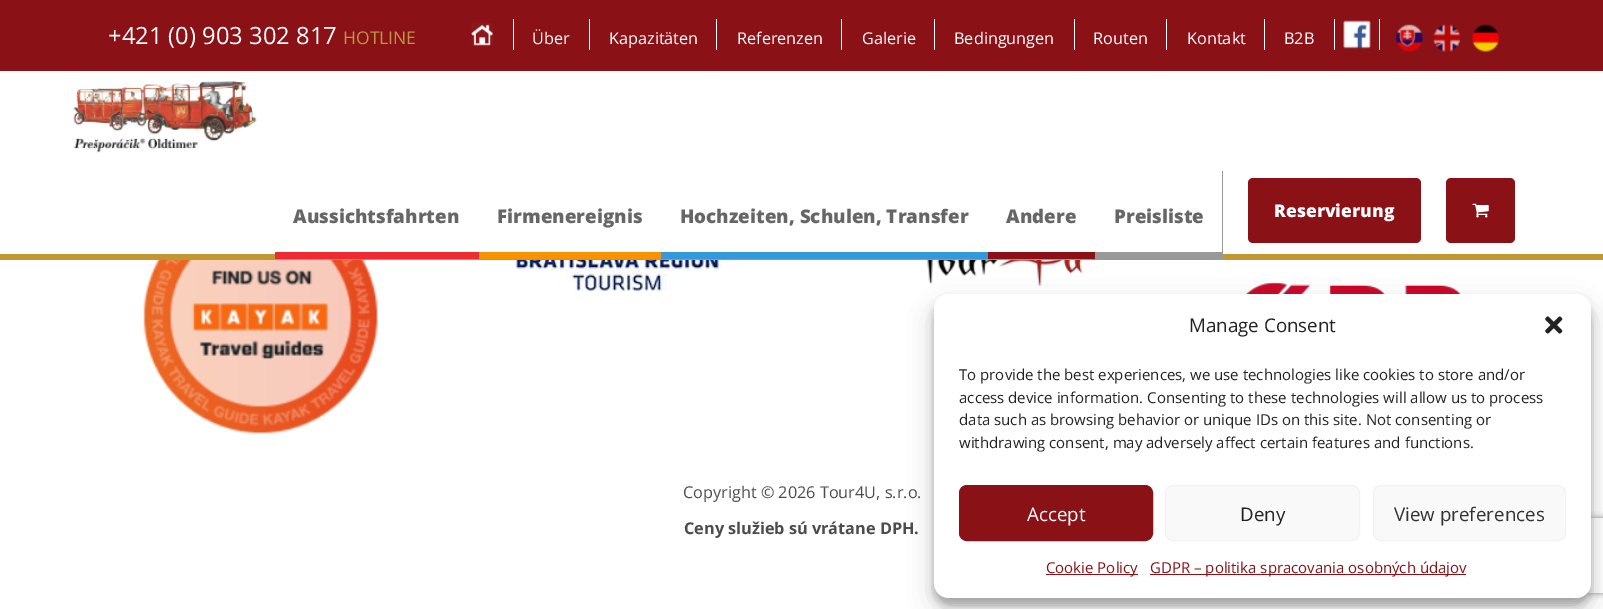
%!PS
<< /PageSize [1603 609] /PageUsesTransparency true >> setpagedevice
/mt/moveto load def
/li/lineto load def
/ct/curveto load def
/cp/closepath load def
/fl/fill load def
/st/stroke load def
/gs/gsave load def
/gr/grestore load def
/co { dup -16 bitshift 255 div exch dup -8 bitshift 255 and 255 div exch 255 and 255 div setrgbcolor } def
/fn { [ exch dup neg 0 0 3 -1 roll 0 0 ] selectfont } def
/tx { co fn moveto show } def
/bx { co rectfill } def
/al { dup .setfillconstantalpha .setstrokeconstantalpha } def
/rr { 5 dict begin { /r /h /w /y /x } { exch def } forall
  x r add y moveto x w add y 2 copy h add r arct x w add y h add x 1 index r arct
  x y h add x y r arct x y 2 copy exch w add exch r arct closepath end } def
/sh { 12 dict begin { /a /b /q /h /w /y /x } { exch def } forall gsave /was 0 def
  9 -2 -9 { dup b mul 4 div /e exch def 1 sub .425 mul 2.718 exch exp 1 add a .99 .min exch div /now exch def
    1 1 now sub 1 was sub div sub al /was now def
    w h .min e 2 mul add 0 gt { x e sub y e sub w e 2 mul add h e 2 mul add
      q e add b .6 mul add w h .min 2 div e add .min 0 .max rr fill } if } for grestore end } def
/im { 5 dict begin { /h /w /y /x /name } { exch def } forall
  gsave x y translate w h scale
  w h 8 [w 0 0 h 0 0] name (r) file false 3 colorimage grestore end } def
0 .pushpdf14devicefilter
0 609 translate 1 -1 scale
4 setmiterlimit
0 0 1603 609 16#FFFFFF bx
0 0 1603 71 16#8A1116 bx
513 19 1 31 16#FFFFFF bx
(media/1.raw) 471 23 22 23 im
589 19 1 31 16#FFFFFF bx
716 19 1 31 16#FFFFFF bx
841 19 1 31 16#FFFFFF bx
934 19 1 31 16#FFFFFF bx
1074 19 1 31 16#FFFFFF bx
1166 19 1 31 16#FFFFFF bx
1264 19 1 31 16#FFFFFF bx
1334 19 1 31 16#FFFFFF bx
1379 19 1 31 16#FFFFFF bx
(media/2.raw) 1343 20 28 29 im
(media/3.raw) 1396 24 27 28 im
(media/4.raw) 1433 24 27 28 im
(media/5.raw) 1472 24 27 28 im
0 254 1603 6 16#C09730 bx
(media/6.raw) 73 81 184 72 im
16#EE2B32 co
275 252 mt 275 259 li 479 259 li 479 171 li 479 252 li cp fl
479 252 182 7 16#F99200 bx
16#3498DB co
661 171 mt 661 259 li 988 259 li 988 171 li 988 252 li 661 252 li cp fl
988 252 107 7 16#8A1116 bx
16#999999 co
1095 252 mt 1095 259 li 1223 259 li 1223 171 li 1222 171 li 1222 252 li cp fl
16#8A1116 co
1248 178 173 65 5 rr fl
1446 178 69 65 5 rr fl
(media/7.raw) 1472 203 17 15 im
(media/8.raw) 143 260 235 174 im
(media/9.raw) 516 260 206 31 im
(media/10.raw) 927 260 156 26 im
(media/11.raw) 1246 282 215 12 im
16#000000 co
934 301 657 304 15 4 .23 sh
934 306 657 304 15 12.5 .19 sh
gs
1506 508 mt 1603 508 li 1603 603 li 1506 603 li cp 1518.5 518 mt 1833.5 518 li 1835 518 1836 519 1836 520.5 ct 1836 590.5 li 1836 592 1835 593 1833.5 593 ct 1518.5 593 li 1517 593 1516 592 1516 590.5 ct 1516 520.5 li 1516 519 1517 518 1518.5 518 ct cp eoclip newpath
16#808080 co
1516 518 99 75 2.5 3 1 sh
gr
16#FFFFFF co
934 294 657 304 15 rr fl
(media/12.raw) 1545 316 18 18 im
16#8A1116 co
959.5 485.5 193 55 7.5 rr gs fl gr
st
16#F9F9F9 co
1165.5 485.5 194 55 7.5 rr gs fl gr
16#F2F2F2 co
st
16#F9F9F9 co
1373.5 485.5 192 55 7.5 rr gs fl gr
16#F2F2F2 co
st
1046 574 92 1 16#8A1116 bx
1150 574 316 1 16#8A1116 bx
(+421 \(0\) 903 302 817) 108 44 /OpenSans-Regular 23.75 16#FFFFFF tx
(HOTLINE) 343 44 /OpenSans-Regular 17.5 16#BC9745 tx
(Über) 532 44 /OpenSans-Regular 16.25 16#FFFFFF tx
(Kapazitäten) 609 44 /OpenSans-Regular 16.25 16#FFFFFF tx
(Referenzen) 737 44 /OpenSans-Regular 16.25 16#FFFFFF tx
(Galerie) 862 44 /OpenSans-Regular 16.25 16#FFFFFF tx
(Bedingungen) 954 44 /OpenSans-Regular 16.25 16#FFFFFF tx
(Routen) 1093 44 /OpenSans-Regular 16.25 16#FFFFFF tx
(Kontakt) 1187 44 /OpenSans-Regular 16.25 16#FFFFFF tx
(B2B) 1284 44 /OpenSans-Regular 16.25 16#FFFFFF tx
(Aussichtsfahrten) 293 223 /OpenSans-ExtraBold 18.75 16#666666 tx
(Firmenereignis) 497 223 /OpenSans-ExtraBold 18.75 16#666666 tx
(Hochzeiten, Schulen, Transfer) 680 223 /OpenSans-ExtraBold 18.75 16#666666 tx
(Andere) 1006 223 /OpenSans-ExtraBold 18.75 16#666666 tx
(Preisliste) 1114 223 /OpenSans-ExtraBold 18.75 16#666666 tx
(Reservierung) 1274 217 /OpenSans-ExtraBold 17.5 16#FFFFFF tx
(Copyright © 2026 Tour4U, s.r.o.) 683 498 /OpenSans-Regular 16.25 16#4C4C4C tx
(Ceny služieb sú vrátane DPH.) 684 534 /OpenSans-Bold 16.25 16#4C4C4C tx
(Manage Consent) 1189 332 /OpenSans-Regular 18.75 16#222222 tx
(To provide the best experiences, we use technologies like cookies to store and/or) 959 380 /OpenSans-Regular 15 16#222222 tx
(access device information. Consenting to these technologies will allow us to process) 959 403 /OpenSans-Regular 15 16#222222 tx
(data such as browsing behavior or unique IDs on this site. Not consenting or) 959 425 /OpenSans-Regular 15 16#222222 tx
(withdrawing consent, may adversely affect certain features and functions.) 959 448 /OpenSans-Regular 15 16#222222 tx
(Accept) 1027 521 /OpenSans-Regular 18.75 16#FFFFFF tx
(Deny) 1240 521 /OpenSans-Regular 18.75 16#222222 tx
(View preferences) 1394 521 /OpenSans-Regular 18.75 16#333333 tx
(Cookie Policy) 1046 573 /OpenSans-Regular 15 16#8A1116 tx
(GDPR – politika spracovania osobných údajov) 1150 573 /OpenSans-Regular 15 16#8A1116 tx
.poppdf14devicefilter showpage
